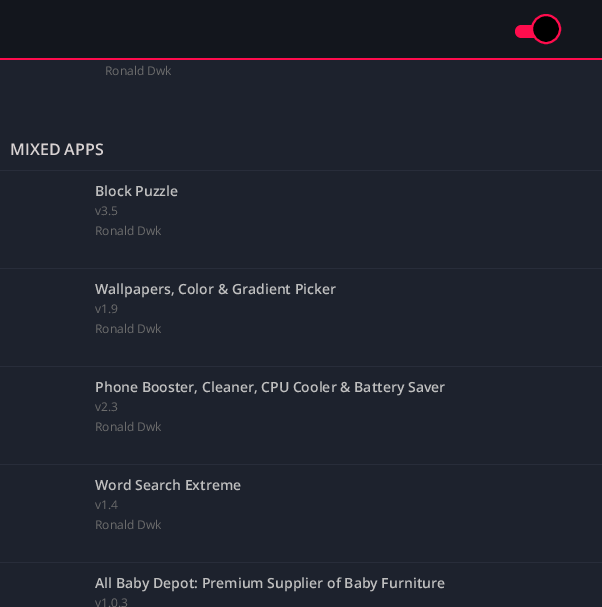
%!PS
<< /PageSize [602 607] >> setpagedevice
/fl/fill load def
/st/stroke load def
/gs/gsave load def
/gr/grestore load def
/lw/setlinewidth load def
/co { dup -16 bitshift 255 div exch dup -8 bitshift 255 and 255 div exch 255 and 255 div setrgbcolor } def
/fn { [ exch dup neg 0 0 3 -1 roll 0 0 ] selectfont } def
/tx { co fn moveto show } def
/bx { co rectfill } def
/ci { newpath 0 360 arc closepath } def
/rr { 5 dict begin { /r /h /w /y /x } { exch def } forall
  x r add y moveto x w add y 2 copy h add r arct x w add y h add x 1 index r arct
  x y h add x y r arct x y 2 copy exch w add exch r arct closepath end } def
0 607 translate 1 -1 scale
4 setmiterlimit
0 0 602 607 16#1D222D bx
0 0 602 58 16#13161D bx
0 58 602 2 16#FF0C4D bx
515 25 45 13 6.5 rr fl
16#000000 co
546 29 14 ci gs fl gr
16#FF0C4D co
2 lw
st
0 170 602 1 16#282D3A bx
0 268 602 1 16#282D3A bx
0 366 602 1 16#282D3A bx
0 464 602 1 16#282D3A bx
0 562 602 1 16#282D3A bx
(Ronald Dwk) 105 75 /OpenSans-Regular 12 16#6D6D6D tx
(MIXED APPS) 10 155 /OpenSans-SemiBold 16 16#D8D2D2 tx
(Block Puzzle) 95 196 /OpenSans-SemiBold 14 16#BFBFBF tx
(v3.5) 95 215 /OpenSans-Regular 12 16#6D6D6D tx
(Ronald Dwk) 95 235 /OpenSans-Regular 12 16#6D6D6D tx
(Wallpapers, Color & Gradient Picker) 95 294 /OpenSans-SemiBold 14 16#BFBFBF tx
(v1.9) 95 313 /OpenSans-Regular 12 16#6D6D6D tx
(Ronald Dwk) 95 333 /OpenSans-Regular 12 16#6D6D6D tx
(Phone Booster, Cleaner, CPU Cooler & Battery Saver) 95 392 /OpenSans-SemiBold 14 16#BFBFBF tx
(v2.3) 95 411 /OpenSans-Regular 12 16#6D6D6D tx
(Ronald Dwk) 95 431 /OpenSans-Regular 12 16#6D6D6D tx
(Word Search Extreme) 95 490 /OpenSans-SemiBold 14 16#BFBFBF tx
(v1.4) 95 509 /OpenSans-Regular 12 16#6D6D6D tx
(Ronald Dwk) 95 529 /OpenSans-Regular 12 16#6D6D6D tx
(All Baby Depot: Premium Supplier of Baby Furniture) 95 588 /OpenSans-SemiBold 14 16#BFBFBF tx
(v1.0.3) 95 607 /OpenSans-Regular 12 16#6D6D6D tx
showpage
